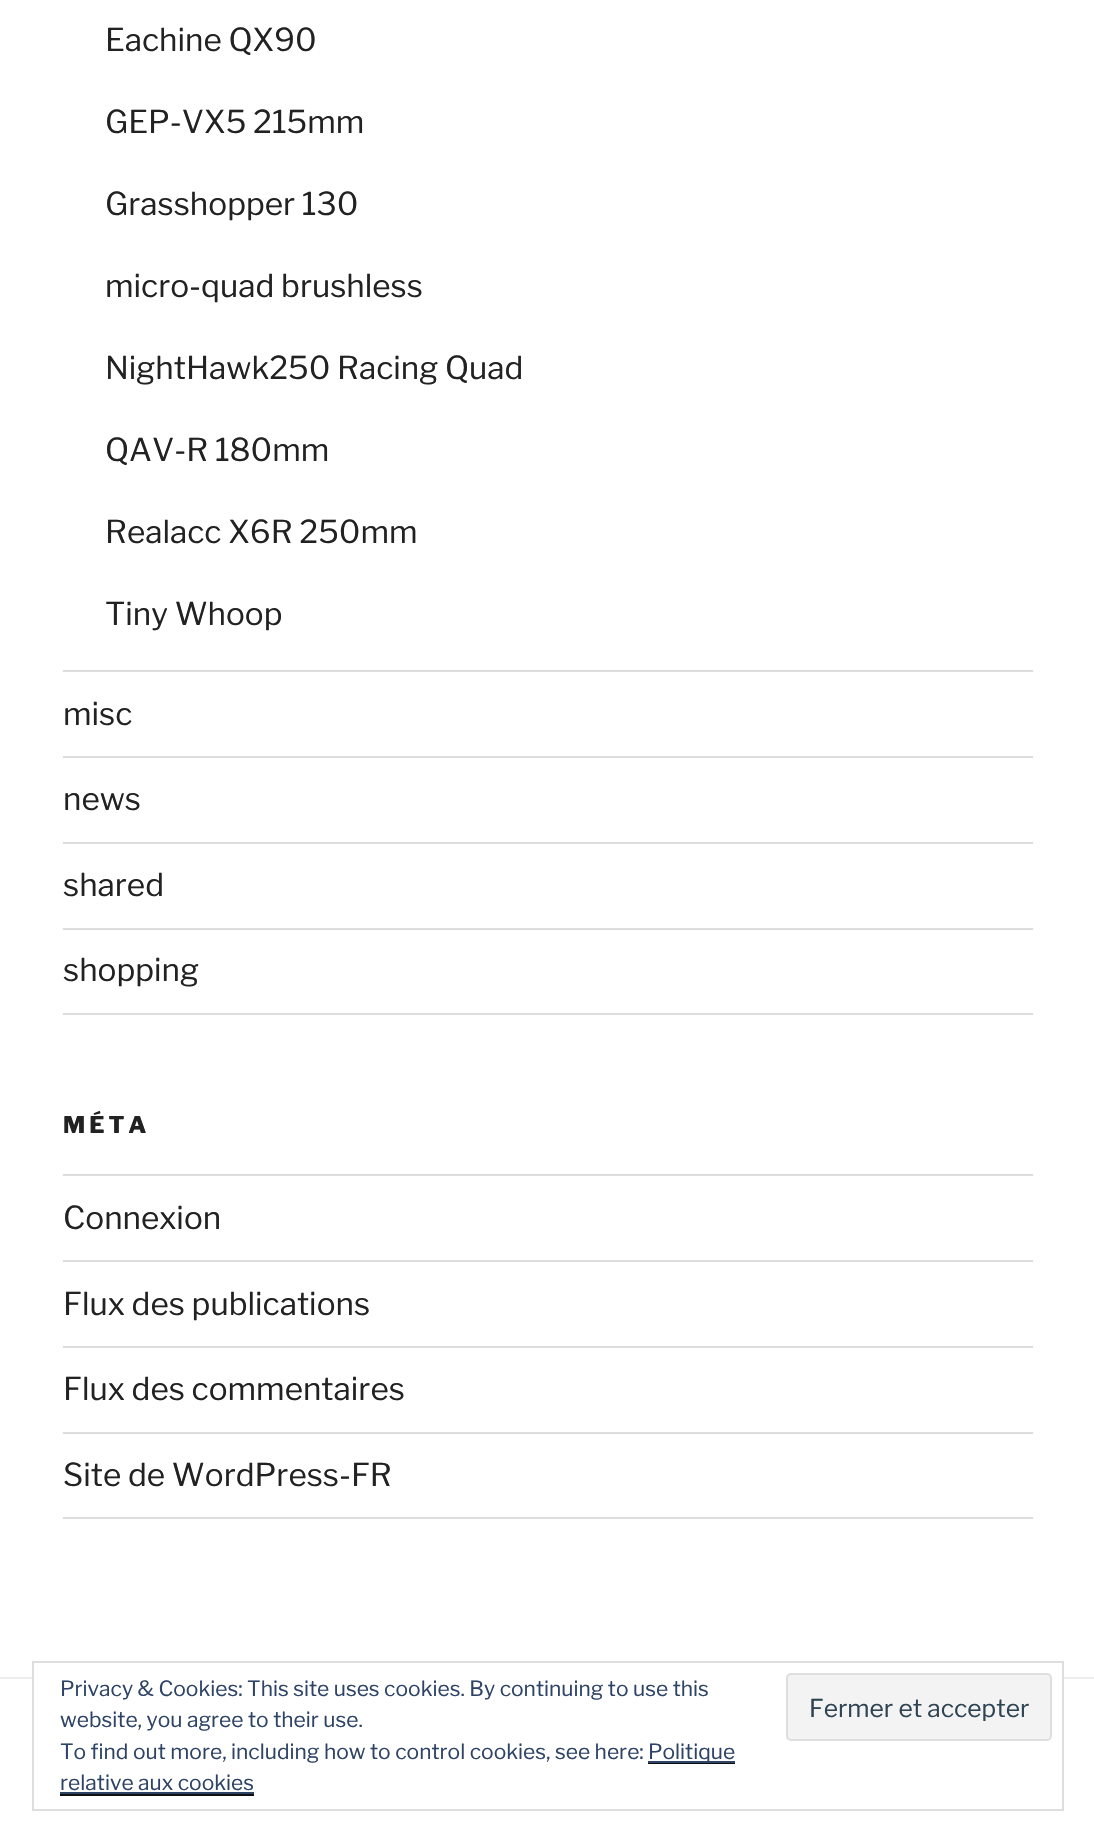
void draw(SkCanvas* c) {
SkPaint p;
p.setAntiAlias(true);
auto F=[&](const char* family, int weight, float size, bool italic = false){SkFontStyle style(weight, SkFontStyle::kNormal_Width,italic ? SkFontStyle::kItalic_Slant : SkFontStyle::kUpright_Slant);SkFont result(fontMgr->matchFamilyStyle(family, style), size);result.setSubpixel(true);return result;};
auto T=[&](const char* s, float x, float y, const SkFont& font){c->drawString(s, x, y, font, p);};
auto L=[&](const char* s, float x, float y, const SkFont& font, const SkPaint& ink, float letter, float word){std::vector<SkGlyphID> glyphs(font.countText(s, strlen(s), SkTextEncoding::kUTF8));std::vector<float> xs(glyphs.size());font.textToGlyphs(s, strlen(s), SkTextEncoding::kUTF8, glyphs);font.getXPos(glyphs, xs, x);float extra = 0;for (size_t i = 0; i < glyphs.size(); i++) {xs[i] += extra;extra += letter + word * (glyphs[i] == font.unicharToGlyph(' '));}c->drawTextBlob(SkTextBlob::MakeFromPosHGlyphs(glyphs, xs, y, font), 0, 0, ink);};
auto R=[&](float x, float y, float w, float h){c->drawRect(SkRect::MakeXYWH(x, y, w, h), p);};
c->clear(0xffffffff);
p.setColor(0xffdddddd);
R(63,670,970,2);
auto f1 = F("Libre Franklin",100,31.5);
p.setColor(0xff222222);
T("Eachine QX90",105,51,f1);
T("GEP-VX5 215mm",105,133,f1);
T("Grasshopper 130",105,215,f1);
T("micro-quad brushless",105,297,f1);
T("NightHawk250 Racing Quad",105,379,f1);
T("QAV-R 180mm",105,461,f1);
T("Realacc X6R 250mm",105,543,f1);
T("Tiny Whoop",105,625,f1);
p.setColor(0xffdddddd);
R(63,756,970,2);
p.setColor(0xff222222);
T("misc",63,725,f1);
p.setColor(0xffdddddd);
R(63,842,970,2);
p.setColor(0xff222222);
T("news",63,810,f1);
p.setColor(0xffdddddd);
R(63,928,970,2);
p.setColor(0xff222222);
T("shared",63,896,f1);
p.setColor(0xffdddddd);
R(63,1013,970,2);
p.setColor(0xff222222);
T("shopping",63,981,f1);
auto f2 = F("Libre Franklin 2",100,23);
L("MÉTA",63,1133,f2,p,4,0);
p.setColor(0xffdddddd);
R(63,1174,970,2);
R(63,1260,970,2);
p.setColor(0xff222222);
T("Connexion",63,1229,f1);
p.setColor(0xffdddddd);
R(63,1346,970,2);
p.setColor(0xff222222);
T("Flux des publications",63,1315,f1);
p.setColor(0xffdddddd);
R(63,1432,970,2);
p.setColor(0xff222222);
T("Flux des commentaires",63,1400,f1);
p.setColor(0xffdddddd);
R(63,1517,970,2);
p.setColor(0xff222222);
T("Site de WordPress-FR",63,1486,f1);
p.setColor(0xffeeeeee);
R(0,1677,1094,2);
p.setColor(0xffffffff);
R(34,1677,1028,2);
p.setStroke(true);
p.setStrokeWidth(2);
p.setColor(0xffdedede);
c->drawRect(SkRect::MakeXYWH(33,1662,1030,148),p);
auto f3 = F("Libre Franklin",100,21);
p.setStroke(false);
p.setColor(0xff2e4467);
T("Privacy & Cookies: This site uses cookies. By continuing to use this",60,1696,f3);
T("website, you agree to their use.",60,1727,f3);
p.setColor(0xfff3f3f3);
c->drawRoundRect(SkRect::MakeXYWH(787,1674,264,66),4,4,p);
p.setStroke(true);
p.setColor(0xffdedede);
c->drawRoundRect(SkRect::MakeXYWH(787,1674,264,66),4,4,p);
auto f4 = F("Libre Franklin",100,24.5);
p.setStroke(false);
p.setColor(0xff2e4453);
T("Fermer et accepter",809,1717,f4);
p.setColor(0xff2e4467);
T("To find out more, including how to control cookies, see here:",60,1759,f3);
R(648,1761,87,2);
T("Politique",648,1759,f3);
p.setColor(0xff0f0f0f);
R(648,1763,87,1);
p.setColor(0xff2e4467);
T("relative aux cookies",60,1790,f3);
p.setColor(0xff0f0f0f);
R(60,1794,194,2);
p.setColor(0xff2e4467);
R(60,1792,194,2);
}
